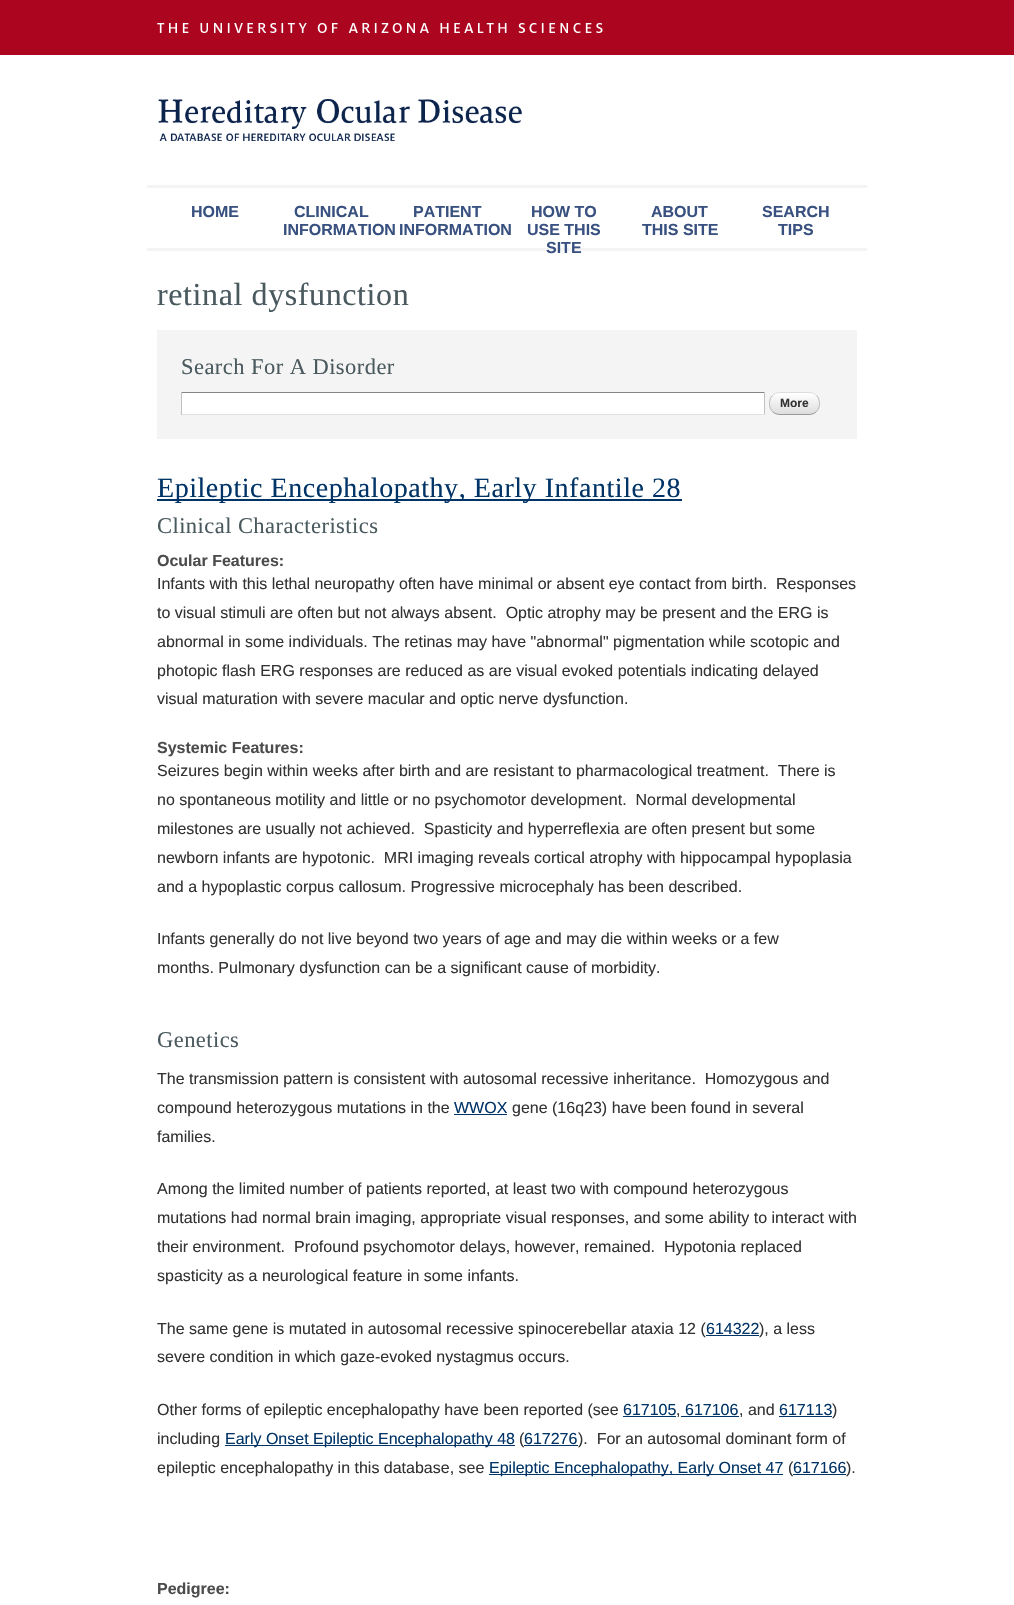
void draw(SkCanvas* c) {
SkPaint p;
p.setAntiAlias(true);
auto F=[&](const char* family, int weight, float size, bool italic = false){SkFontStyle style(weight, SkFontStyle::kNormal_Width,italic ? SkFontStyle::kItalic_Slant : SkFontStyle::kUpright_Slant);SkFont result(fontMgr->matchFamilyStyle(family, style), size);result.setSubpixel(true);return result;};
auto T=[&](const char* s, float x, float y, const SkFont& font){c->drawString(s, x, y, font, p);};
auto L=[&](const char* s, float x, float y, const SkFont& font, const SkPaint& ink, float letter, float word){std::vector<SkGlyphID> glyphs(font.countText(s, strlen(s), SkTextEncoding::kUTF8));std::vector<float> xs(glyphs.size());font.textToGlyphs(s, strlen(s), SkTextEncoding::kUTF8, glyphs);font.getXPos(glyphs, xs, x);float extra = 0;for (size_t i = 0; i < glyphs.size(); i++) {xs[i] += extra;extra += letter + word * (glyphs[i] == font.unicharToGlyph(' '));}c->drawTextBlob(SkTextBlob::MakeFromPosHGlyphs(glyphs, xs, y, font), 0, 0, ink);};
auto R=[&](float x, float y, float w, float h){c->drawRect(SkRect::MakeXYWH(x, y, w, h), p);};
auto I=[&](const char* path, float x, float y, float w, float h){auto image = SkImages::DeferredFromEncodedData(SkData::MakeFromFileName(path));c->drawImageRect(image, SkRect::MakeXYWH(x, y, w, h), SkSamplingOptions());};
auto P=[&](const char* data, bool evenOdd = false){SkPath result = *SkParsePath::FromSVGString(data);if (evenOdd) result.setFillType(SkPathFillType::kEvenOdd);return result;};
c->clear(0xffffffff);
p.setColor(0xffab0520);
R(0,0,1014,55);
I("1.png",157,23,446,10);
I("2.png",158,99,364,42);
p.setColor(0xfff4f4f4);
R(147,185,720,3);
R(147,248,720,3);
auto f1 = F("Liberation Sans",700,16);
p.setColor(0xff395180);
T("HOME",191,217,f1);
T("CLINICAL",294,217,f1);
T("INFORMATION",283,235,f1);
T("PATIENT",413,217,f1);
T("INFORMATION",399,235,f1);
T("HOW TO",531,217,f1);
T("USE THIS",527,235,f1);
T("SITE",546,253,f1);
T("ABOUT",651,217,f1);
T("THIS SITE",642,235,f1);
T("SEARCH",762,217,f1);
T("TIPS",778,235,f1);
auto f2 = F("Liberation Serif",400,32);
p.setColor(0xff49595e);
L("retinal dysfunction",157,305,f2,p,.6,0);
p.setColor(0xfff4f4f4);
R(157,330,700,109);
auto f3 = F("Liberation Serif",400,22.5);
p.setColor(0xff49595e);
L("Search For A Disorder",181,374,f3,p,.45,0);
p.setColor(0xffffffff);
R(182,393,582,21);
p.setColor(0xff848484);
R(181,392,584,1);
p.setColor(0xffc1c1c1);
R(764,392,1,23);
p.setColor(0xffe1e1e1);
R(181,414,584,1);
p.setColor(0xffc1c1c1);
R(181,392,1,23);
c->save();
c->clipPath(P("M780 392h29c6 0 11 5 11 11v1c0 6-5 11-11 11h-29c-6 0-11-5-11-11v-1c0-6 5-11 11-11z"),true);
{
const SkColor colors[] = {0xffffffff,0xffdddddd};
const float stops[] = {0,1};
const SkPoint ends[] = {{770,393}, {770,414}};
p.setShader(SkGradientShader::MakeLinear(ends, colors, stops, 2, SkTileMode::kClamp));
p.setAlpha(255);
}
R(769,393,51,21);
c->restore();
p.setStroke(true);
p.setStrokeWidth(1);
p.setShader(nullptr);
p.setColor(0xffdddddd);
c->drawPath(P("M772.5 395.5c2-2 4.5-3 7.5-3h29c3 0 5.5 1 7.5 3"),p);
p.setColor(0xffbbbbbb);
c->drawPath(P("M816.5 395.5c4 4 4 12 0 16"),p);
p.setColor(0xff999999);
c->drawPath(P("M816.5 411.5c-2 2-4.5 3-7.5 3h-29c-3 0-5.5-1-7.5-3"),p);
p.setColor(0xffbbbbbb);
c->drawPath(P("M772.5 411.5c-4-4-4-12 0-16"),p);
auto f4 = F("Liberation Sans",700,12);
p.setStroke(false);
p.setColor(0xff333333);
T("More",780,407,f4);
p.setColor(0xff003366);
R(157,499,525,2);
auto f5 = F("Liberation Serif",400,28);
L("Epileptic Encephalopathy, Early Infantile 28",157,497,f5,p,.55,0);
p.setColor(0xff49595e);
L("Clinical Characteristics",157,533,f3,p,.45,0);
p.setColor(0xff4c4c4c);
T("Ocular Features:",157,566,f1);
auto f6 = F("Liberation Sans",400,16);
p.setColor(0xff333333);
T("Infants with this lethal neuropathy often have minimal or absent eye contact from birth.  Responses",157,589,f6);
T("to visual stimuli are often but not always absent.  Optic atrophy may be present and the ERG is",157,618,f6);
T("abnormal in some individuals. The retinas may have \"abnormal\" pigmentation while scotopic and",157,647,f6);
T("photopic flash ERG responses are reduced as are visual evoked potentials indicating delayed",157,676,f6);
T("visual maturation with severe macular and optic nerve dysfunction.",157,704,f6);
p.setColor(0xff4c4c4c);
T("Systemic Features:",157,753,f1);
p.setColor(0xff333333);
T("Seizures begin within weeks after birth and are resistant to pharmacological treatment.  There is",157,776,f6);
T("no spontaneous motility and little or no psychomotor development.  Normal developmental",157,805,f6);
T("milestones are usually not achieved.  Spasticity and hyperreflexia are often present but some",157,834,f6);
T("newborn infants are hypotonic.  MRI imaging reveals cortical atrophy with hippocampal hypoplasia",157,863,f6);
T("and a hypoplastic corpus callosum. Progressive microcephaly has been described.",157,892,f6);
T("Infants generally do not live beyond two years of age and may die within weeks or a few",157,944,f6);
T("months. Pulmonary dysfunction can be a significant cause of morbidity.",157,973,f6);
p.setColor(0xff49595e);
L("Genetics",157,1047,f3,p,.45,0);
p.setColor(0xff333333);
T("The transmission pattern is consistent with autosomal recessive inheritance.  Homozygous and",157,1084,f6);
T("compound heterozygous mutations in the",157,1113,f6);
p.setColor(0xff003366);
T("WWOX",454,1113,f6);
R(454,1114,53,1);
p.setColor(0xff333333);
T("gene (16q23) have been found in several",512,1113,f6);
T("families.",157,1142,f6);
T("Among the limited number of patients reported, at least two with compound heterozygous",157,1194,f6);
T("mutations had normal brain imaging, appropriate visual responses, and some ability to interact with",157,1223,f6);
T("their environment.  Profound psychomotor delays, however, remained.  Hypotonia replaced",157,1252,f6);
T("spasticity as a neurological feature in some infants.",157,1281,f6);
T("The same gene is mutated in autosomal recessive spinocerebellar ataxia 12 (",157,1334,f6);
p.setColor(0xff003366);
T("614322",706,1334,f6);
R(706,1335,53,1);
p.setColor(0xff333333);
T("), a less",759,1334,f6);
T("severe condition in which gaze-evoked nystagmus occurs.",157,1362,f6);
T("Other forms of epileptic encephalopathy have been reported (see",157,1415,f6);
p.setColor(0xff003366);
T("617105",623,1415,f6);
R(623,1416,53,1);
p.setColor(0xff333333);
T(",",676,1415,f6);
p.setColor(0xff003366);
T("617106",685,1415,f6);
R(681,1416,58,1);
p.setColor(0xff333333);
T(", and",739,1415,f6);
p.setColor(0xff003366);
T("617113",779,1415,f6);
R(779,1416,53,1);
p.setColor(0xff333333);
T(")",832,1415,f6);
T("including",157,1444,f6);
p.setColor(0xff003366);
R(225,1445,290,1);
T("Early Onset Epileptic Encephalopathy 48",225,1444,f6);
p.setColor(0xff333333);
T("(",519,1444,f6);
p.setColor(0xff003366);
T("617276",524,1444,f6);
R(524,1445,54,1);
p.setColor(0xff333333);
T(").  For an autosomal dominant form of",578,1444,f6);
T("epileptic encephalopathy in this database, see",157,1473,f6);
p.setColor(0xff003366);
R(489,1474,294,1);
T("Epileptic Encephalopathy, Early Onset 47",489,1473,f6);
p.setColor(0xff333333);
T("(",788,1473,f6);
p.setColor(0xff003366);
T("617166",793,1473,f6);
R(793,1474,53,1);
p.setColor(0xff333333);
T(").",846,1473,f6);
p.setColor(0xff4c4c4c);
T("Pedigree:",157,1594,f1);
}
